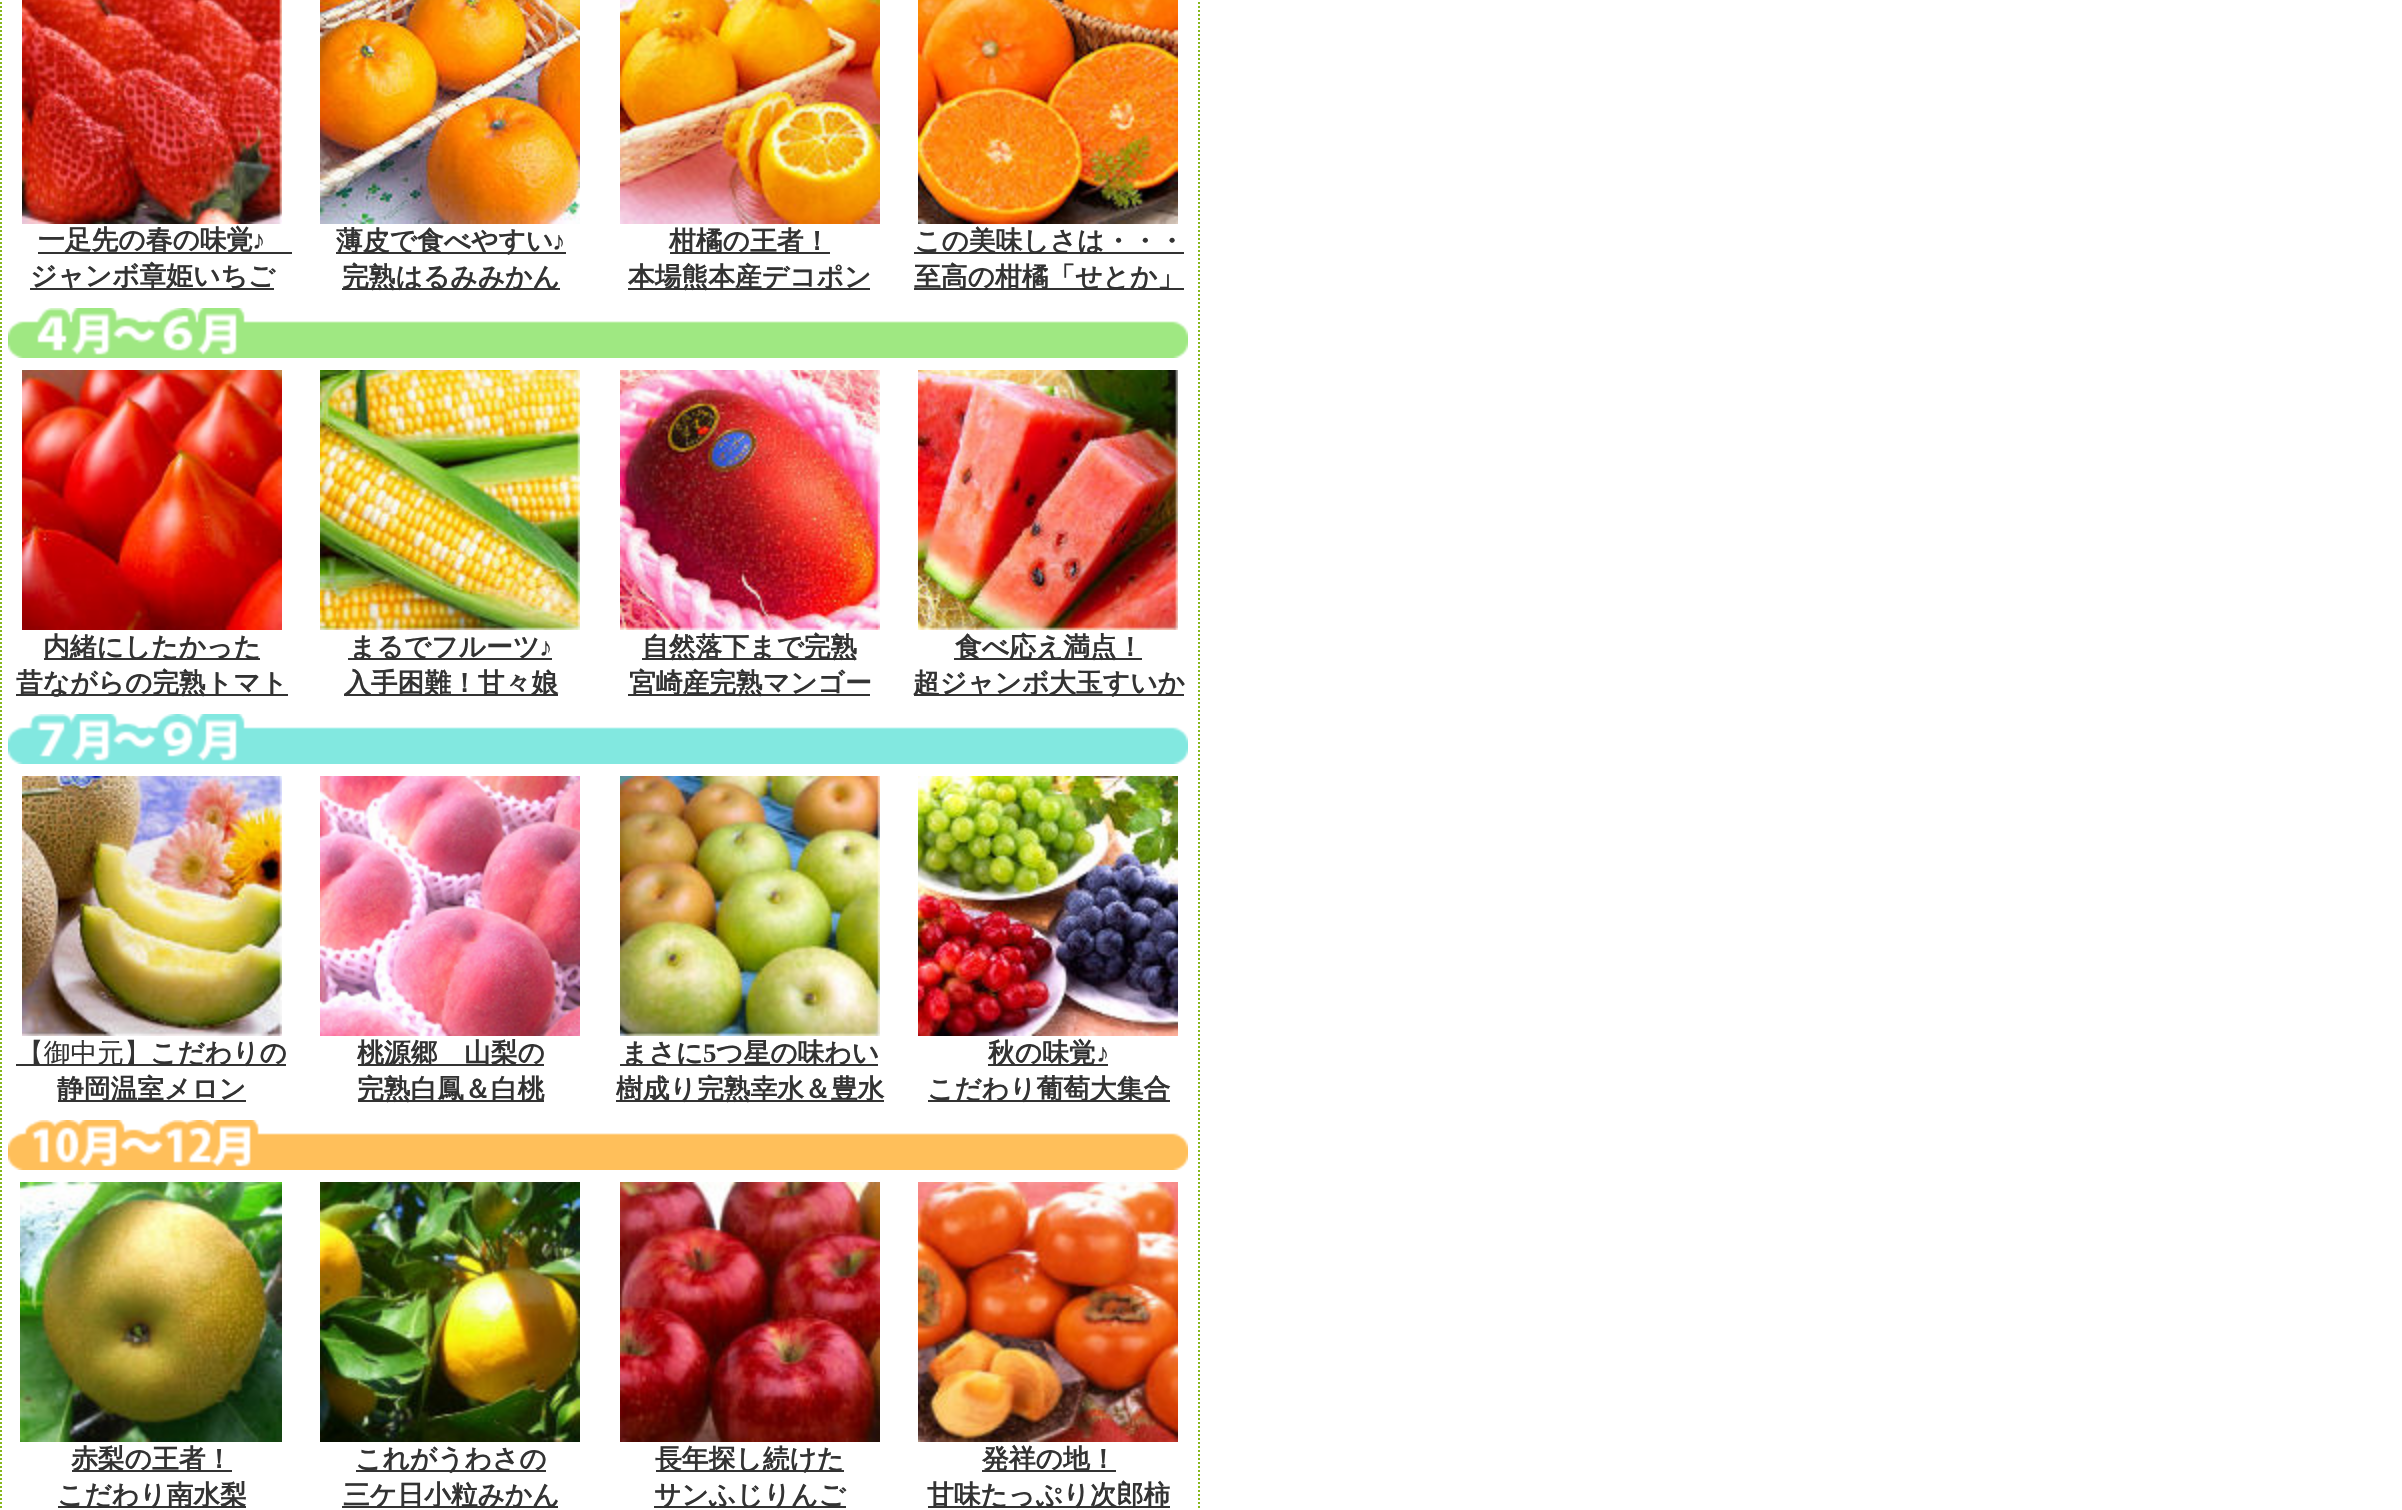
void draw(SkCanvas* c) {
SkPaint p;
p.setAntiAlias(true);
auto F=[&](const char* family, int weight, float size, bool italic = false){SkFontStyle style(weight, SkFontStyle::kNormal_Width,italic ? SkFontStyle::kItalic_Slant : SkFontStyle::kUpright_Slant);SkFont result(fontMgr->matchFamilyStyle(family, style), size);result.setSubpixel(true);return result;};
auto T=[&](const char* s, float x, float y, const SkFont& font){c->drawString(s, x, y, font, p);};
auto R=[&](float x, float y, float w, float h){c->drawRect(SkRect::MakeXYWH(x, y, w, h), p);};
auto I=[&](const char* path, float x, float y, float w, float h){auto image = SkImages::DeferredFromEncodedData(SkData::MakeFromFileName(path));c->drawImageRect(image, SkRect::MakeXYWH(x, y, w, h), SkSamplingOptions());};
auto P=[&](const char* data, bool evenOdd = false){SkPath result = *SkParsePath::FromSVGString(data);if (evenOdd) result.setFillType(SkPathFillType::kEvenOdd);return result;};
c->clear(0xffffffff);
p.setStroke(true);
p.setStrokeWidth(2);
p.setColor(0xff85b71a);
p.setPathEffect(SkDashPathEffect::Make({{2,2}}, 0));
c->drawPath(P("M1199-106v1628"),p);
p.setPathEffect(nullptr);
p.setPathEffect(SkDashPathEffect::Make({{2,2}}, 0));
c->drawPath(P("M1-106v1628"),p);
p.setPathEffect(nullptr);
I("1.png",22,0,260,224);
p.setStroke(false);
p.setColor(0xff333333);
R(38,252,254,2);
auto f1 = F("WenQuanYi Zen Hei",700,26.75);
T("一足先の春の味覚",38,249,f1);
auto f2 = F("Liberation Serif",700,26.75);
T("♪",252,249,f2);
R(30,288,244,2);
T("ジャンボ章姫いちご",30,285,f1);
I("2.png",320,0,260,224);
R(336,252,230,2);
T("薄皮で食べやすい",336,250,f1);
T("♪",552,250,f2);
R(342,288,218,2);
T("完熟はるみみかん",342,286,f1);
I("3.png",620,0,260,224);
R(670,252,160,2);
T("柑橘の王者！",669,250,f1);
R(628,288,242,2);
T("本場熊本産デコポン",628,286,f1);
I("4.png",918,0,260,224);
R(914,252,270,2);
T("この美味しさは・・・",914,250,f1);
R(914,288,270,2);
T("至高の柑橘「せとか」",914,286,f1);
I("5.png",8,308,1180,50);
I("6.png",22,370,260,260);
R(44,658,216,2);
T("内緒にしたかった",43,656,f1);
R(16,694,272,2);
T("昔ながらの完熟トマト",16,692,f1);
I("7.png",320,370,260,260);
R(348,658,204,2);
T("まるでフルーツ",349,656,f1);
T("♪",539,656,f2);
R(344,694,214,2);
T("入手困難！甘々娘",344,692,f1);
I("8.png",620,370,260,260);
R(642,658,214,2);
T("自然落下まで完熟",642,656,f1);
R(628,694,242,2);
T("宮崎産完熟マンゴー",629,692,f1);
I("9.png",918,370,260,260);
R(954,658,188,2);
T("食べ応え満点！",955,656,f1);
R(914,694,270,2);
T("超ジャンボ大玉すいか",913,692,f1);
I("10.png",8,714,1180,50);
I("11.png",22,776,260,260);
R(16,1064,270,2);
auto f3 = F("WenQuanYi Zen Hei",500,26.75);
T("【御中元】",17,1062,f3);
T("こだわりの",150,1062,f1);
R(58,1100,188,2);
T("静岡温室メロン",57,1098,f1);
I("12.png",320,776,260,260);
R(358,1064,186,2);
T("桃源郷　山梨の",357,1062,f1);
R(358,1100,186,2);
T("完熟白鳳＆白桃",357,1098,f1);
I("13.png",620,776,260,260);
R(620,1064,258,2);
T("まさに",621,1062,f1);
T("5",703,1062,f2);
T("つ星の味わい",716,1062,f1);
R(616,1100,268,2);
T("樹成り完熟幸水＆豊水",616,1098,f1);
I("14.png",918,776,260,260);
R(988,1064,120,2);
T("秋の味覚",988,1062,f1);
T("♪",1096,1062,f2);
R(928,1100,242,2);
T("こだわり葡萄大集合",927,1098,f1);
I("15.png",8,1120,1180,50);
I("16.png",20,1182,262,260);
R(72,1470,160,2);
T("赤梨の王者！",71,1468,f1);
R(58,1506,188,2);
T("こだわり南水梨",57,1504,f1);
I("17.png",320,1182,260,260);
R(356,1470,190,2);
T("これがうわさの",355,1468,f1);
R(342,1506,216,2);
T("三ケ日小粒みかん",343,1504,f1);
I("18.png",620,1182,260,260);
R(656,1470,188,2);
T("長年探し続けた",655,1468,f1);
R(654,1506,192,2);
T("サンふじりんご",654,1504,f1);
I("19.png",918,1182,260,260);
R(982,1470,134,2);
T("発祥の地！",982,1468,f1);
R(928,1506,242,2);
T("甘味たっぷり次郎柿",927,1504,f1);
}
